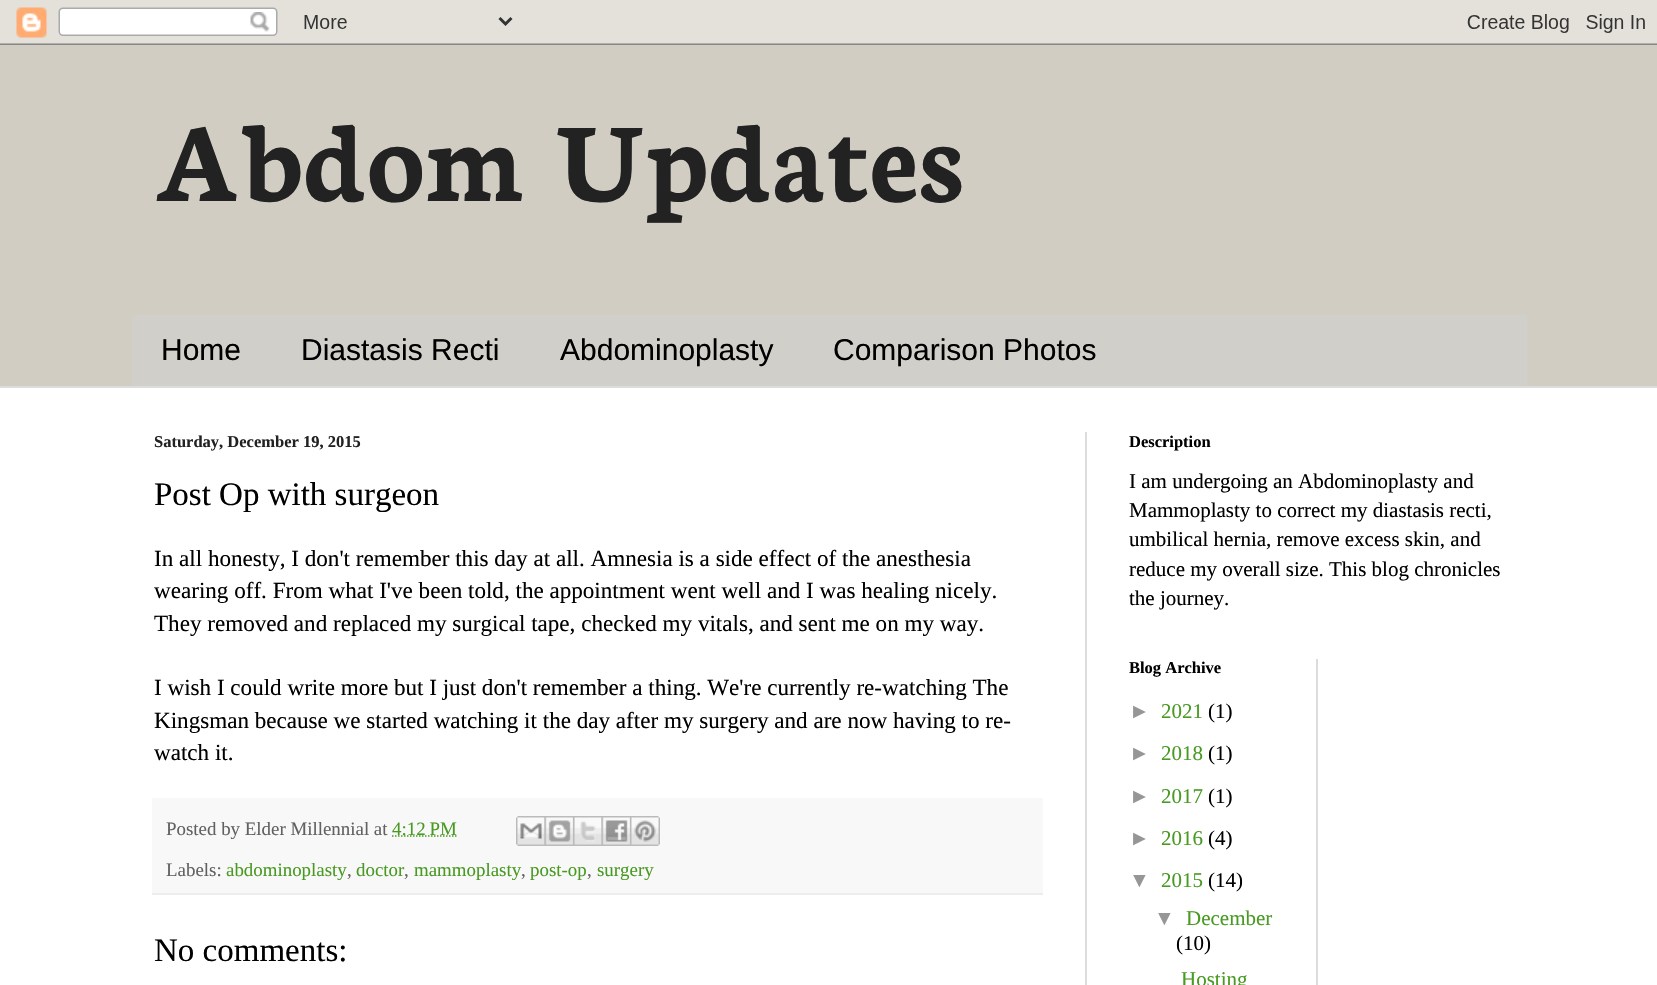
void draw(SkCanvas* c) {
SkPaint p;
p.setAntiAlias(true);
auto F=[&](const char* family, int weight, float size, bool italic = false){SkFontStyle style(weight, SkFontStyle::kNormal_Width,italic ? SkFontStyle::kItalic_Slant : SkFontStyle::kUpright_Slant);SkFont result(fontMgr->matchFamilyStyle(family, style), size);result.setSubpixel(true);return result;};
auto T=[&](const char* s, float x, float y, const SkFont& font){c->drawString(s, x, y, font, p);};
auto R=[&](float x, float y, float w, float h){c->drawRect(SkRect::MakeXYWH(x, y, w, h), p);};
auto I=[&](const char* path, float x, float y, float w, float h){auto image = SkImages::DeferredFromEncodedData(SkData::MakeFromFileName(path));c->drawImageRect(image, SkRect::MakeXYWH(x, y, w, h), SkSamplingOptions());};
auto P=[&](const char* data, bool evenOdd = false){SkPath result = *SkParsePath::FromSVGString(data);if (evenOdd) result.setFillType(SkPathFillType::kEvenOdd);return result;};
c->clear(0xffd1cdc2);
I("1.png",0,0,1657,45);
auto f1 = F("Neuton",700,120);
p.setColor(0xff222222);
T("Abdom Updates",154,201,f1);
p.setColor(0xffd1cfc9);
R(132,315,1395,71);
auto f2 = F("Liberation Sans",400,30);
p.setColor(0xff000000);
T("Home",161,360,f2);
T("Diastasis Recti",301,360,f2);
T("Abdominoplasty",560,360,f2);
T("Comparison Photos",833,360,f2);
p.setColor(0xffffffff);
R(0,388,1657,597);
p.setColor(0xffdcdcdc);
R(0,386,1657,2);
R(1085,432,2,553);
auto f3 = F("Liberation Serif",700,16.5);
p.setColor(0xff222222);
T("Saturday, December 19, 2015",154,447,f3);
auto f4 = F("Liberation Serif",400,33);
p.setColor(0xff000000);
T("Post Op with surgeon",154,505,f4);
auto f5 = F("Liberation Serif",400,23.1);
T("In all honesty, I don't remember this day at all. Amnesia is a side effect of the anesthesia",154,566,f5);
T("wearing off. From what I've been told, the appointment went well and I was healing nicely.",154,598,f5);
T("They removed and replaced my surgical tape, checked my vitals, and sent me on my way.",154,631,f5);
T("I wish I could write more but I just don't remember a thing. We're currently re-watching The",154,695,f5);
T("Kingsman because we started watching it the day after my surgery and are now having to re-",154,728,f5);
T("watch it.",154,760,f5);
p.setColor(0xfff8f8f8);
R(152,798,891,95);
p.setColor(0xffededed);
R(152,893,891,2);
auto f6 = F("Liberation Serif",400,18.9);
p.setColor(0xff616161);
T("Posted by Elder Millennial at",166,835,f6);
p.setStroke(true);
p.setStrokeWidth(1.5);
p.setColor(0xff489a22);
p.setPathEffect(SkDashPathEffect::Make({{1.5f,1.5f}}, 0));
c->drawPath(P("M392 836h64.5"),p);
p.setPathEffect(nullptr);
p.setStroke(false);
T("4:12 PM",392,835,f6);
I("2.png",516,816,29,30);
I("3.png",544,816,29,30);
I("4.png",573,816,29,30);
I("5.png",601,816,29,30);
I("6.png",630,816,30,30);
p.setColor(0xff616161);
T("Labels:",166,876,f6);
p.setColor(0xff489a22);
T("abdominoplasty",226,876,f6);
p.setColor(0xff616161);
T(",",347,876,f6);
p.setColor(0xff489a22);
T("doctor",356,876,f6);
p.setColor(0xff616161);
T(",",404,876,f6);
p.setColor(0xff489a22);
T("mammoplasty",414,876,f6);
p.setColor(0xff616161);
T(",",521,876,f6);
p.setColor(0xff489a22);
T("post-op",530,876,f6);
p.setColor(0xff616161);
T(",",587,876,f6);
p.setColor(0xff489a22);
T("surgery",597,876,f6);
p.setColor(0xff000000);
T("No comments:",154,961,f4);
T("Description",1129,447,f3);
auto f7 = F("Liberation Serif",400,21);
T("I am undergoing an Abdominoplasty and",1129,488,f7);
T("Mammoplasty to correct my diastasis recti,",1129,517,f7);
T("umbilical hernia, remove excess skin, and",1129,546,f7);
T("reduce my overall size. This blog chronicles",1129,576,f7);
T("the journey.",1129,605,f7);
T("Blog Archive",1129,673,f3);
auto f8 = F("Liberation Sans",400,21);
p.setColor(0xff969696);
T("►",1129,718,f8);
p.setColor(0xff489a22);
T("2021",1161,718,f7);
p.setColor(0xff000000);
T("(1)",1208,718,f7);
p.setColor(0xff969696);
T("►",1129,760,f8);
p.setColor(0xff489a22);
T("2018",1161,760,f7);
p.setColor(0xff000000);
T("(1)",1208,760,f7);
p.setColor(0xff969696);
T("►",1129,803,f8);
p.setColor(0xff489a22);
T("2017",1161,803,f7);
p.setColor(0xff000000);
T("(1)",1208,803,f7);
p.setColor(0xff969696);
T("►",1129,845,f8);
p.setColor(0xff489a22);
T("2016",1161,845,f7);
p.setColor(0xff000000);
T("(4)",1208,845,f7);
p.setColor(0xff969696);
T("▼",1129,887,f8);
p.setColor(0xff489a22);
T("2015",1161,887,f7);
p.setColor(0xff000000);
T("(14)",1208,887,f7);
p.setColor(0xff969696);
T("▼",1154,925,f8);
p.setColor(0xff489a22);
T("December",1186,925,f7);
p.setColor(0xff000000);
T("(10)",1176,950,f7);
p.setColor(0xff489a22);
T("Hosting",1181,986,f7);
p.setColor(0xffdcdcdc);
R(1316,659,2,326);
}
